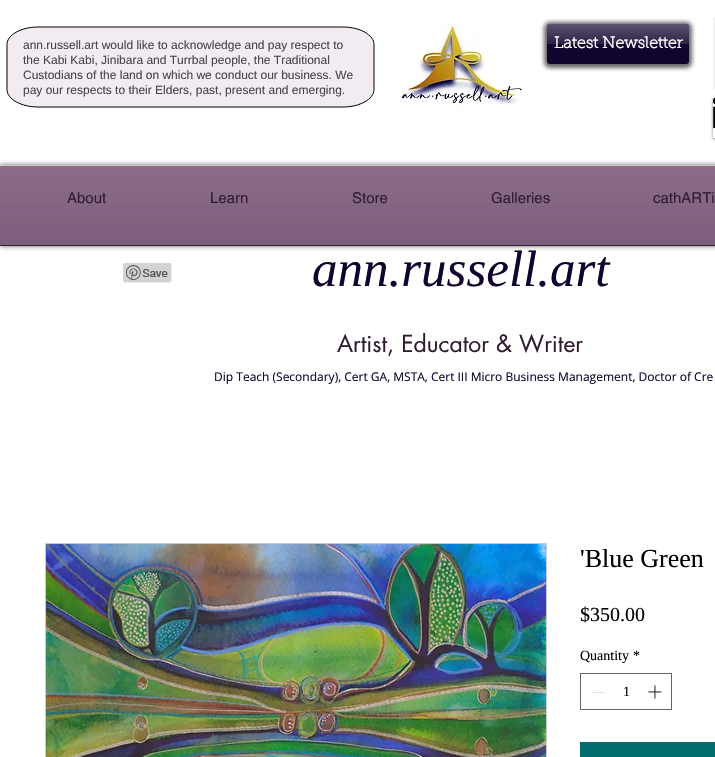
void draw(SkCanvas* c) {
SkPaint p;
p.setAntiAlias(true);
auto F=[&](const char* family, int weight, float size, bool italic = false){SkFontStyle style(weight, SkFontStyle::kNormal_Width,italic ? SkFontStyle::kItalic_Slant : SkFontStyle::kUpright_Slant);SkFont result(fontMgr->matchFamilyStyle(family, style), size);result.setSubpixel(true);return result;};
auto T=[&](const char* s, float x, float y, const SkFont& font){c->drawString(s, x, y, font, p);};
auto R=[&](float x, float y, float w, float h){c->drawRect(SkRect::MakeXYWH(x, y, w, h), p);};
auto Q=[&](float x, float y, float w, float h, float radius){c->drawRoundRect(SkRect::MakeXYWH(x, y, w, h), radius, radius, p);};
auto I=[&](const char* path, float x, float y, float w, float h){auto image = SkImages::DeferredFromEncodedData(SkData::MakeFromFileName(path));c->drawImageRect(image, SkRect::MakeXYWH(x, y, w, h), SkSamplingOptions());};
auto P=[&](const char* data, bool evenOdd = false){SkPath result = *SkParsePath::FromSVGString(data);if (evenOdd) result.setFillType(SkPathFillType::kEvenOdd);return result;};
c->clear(0xffffffff);
p.setColor(0xfff2ebf2);
c->drawPath(P("M343 107h-305c-17 0-31-8-31-17v-46c0-9 14-17 31-17h305c17 0 31 8 31 17v46c0 9-14 17-31 17z"),p);
p.setStroke(true);
p.setStrokeWidth(1);
p.setColor(0xff000000);
c->drawPath(P("M343 107h-305c-17 0-31-8-31-17.5v-45c0-9.5 14-17.5 31-17.5h305c17 0 31 8 31 17.5v45c0 9.5-14 17.5-31 17.5z"),p);
I("1.png",401,22,122,84);
p.setStroke(false);
p.setColor(0x99000000);
p.setMaskFilter(SkMaskFilter::MakeBlur(kNormal_SkBlurStyle, 2));
c->drawRoundRect(SkRect::MakeXYWH(544,22,148,46),6,6,p);
p.setMaskFilter(nullptr);
p.setColor(0xff11042e);
Q(547,24,142,40,3);
I("2.png",547,24,142,20);
auto f1 = F("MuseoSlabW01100",700,16);
p.setColor(0xffffffff);
T("Latest Newsletter",554,48,f1);
I("3.png",713,17,2,73);
auto f2 = F("Liberation Sans",400,12);
p.setColor(0xff464646);
T("ann.russell.art would like to acknowledge and pay respect to",23,49,f2);
T("the Kabi Kabi, Jinibara and Turrbal people, the Traditional",23,64,f2);
T("Custodians of the land on which we conduct our business. We",23,79,f2);
T("pay our respects to their Elders, past, present and emerging.",23,94,f2);
c->save();
c->clipPath(P("M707 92h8v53h-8zm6 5h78v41h-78z",true),true);
p.setColor(0x80000000);
p.setMaskFilter(SkMaskFilter::MakeBlur(kNormal_SkBlurStyle, 1.5));
c->drawRect(SkRect::MakeXYWH(713,98,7,41),p);
p.setMaskFilter(nullptr);
c->restore();
I("4.png",713,97,2,32);
p.setColor(0x99000000);
p.setMaskFilter(SkMaskFilter::MakeBlur(kNormal_SkBlurStyle, 2.5));
c->drawRect(SkRect::MakeXYWH(0,165,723,81),p);
p.setMaskFilter(nullptr);
p.setColor(0xff623961);
R(0,166,715,79);
I("5.png",0,166,715,79);
p.setColor(0xff322532);
R(0,245,715,1);
p.setColor(0xffd0c4d0);
R(0,165,715,1);
auto f3 = F("helvetica",400,15);
p.setColor(0xff311d31);
T("About",67,203,f3);
T("Learn",210,203,f3);
T("Store",352,203,f3);
T("Galleries",491,203,f3);
T("cathARTi",653,203,f3);
I("6.png",123,263,49,20);
auto f4 = F("Liberation Serif",400,51,true);
p.setColor(0xff11042e);
T("ann.russell.art",312,286,f4);
auto f5 = F("futura",400,23);
p.setColor(0xff311d31);
T("Artist, Educator & Writer",337,352,f5);
auto f6 = F("Open Sans",400,12);
p.setColor(0xff11042e);
T("Dip Teach (Secondary), Cert GA, MSTA, Cert III Micro Business Management, Doctor of Cre",214,381,f6);
p.setStroke(true);
p.setColor(0xffcacaca);
c->drawRect(SkRect::MakeXYWH(45.5,543.5,501,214),p);
I("7.png",46,544,500,213);
auto f7 = F("Liberation Serif",400,26);
p.setStroke(false);
p.setColor(0xff000000);
T("'Blue Green",580,567,f7);
auto f8 = F("Liberation Serif",400,20);
T("$350.00",580,621,f8);
auto f9 = F("Liberation Serif",400,14);
T("Quantity",580,660,f9);
T("*",633,660,f9);
p.setStroke(true);
p.setColor(0xff666666);
c->drawRect(SkRect::MakeXYWH(580.5,673.5,91,36),p);
p.setStroke(false);
p.setColor(0xffe3e3e3);
R(592,692,13,1);
p.setColor(0xff000000);
T("1",623,696,f9);
I("8.png",648,685,14,14);
p.setColor(0xff006c6d);
R(580,742,135,15);
}
